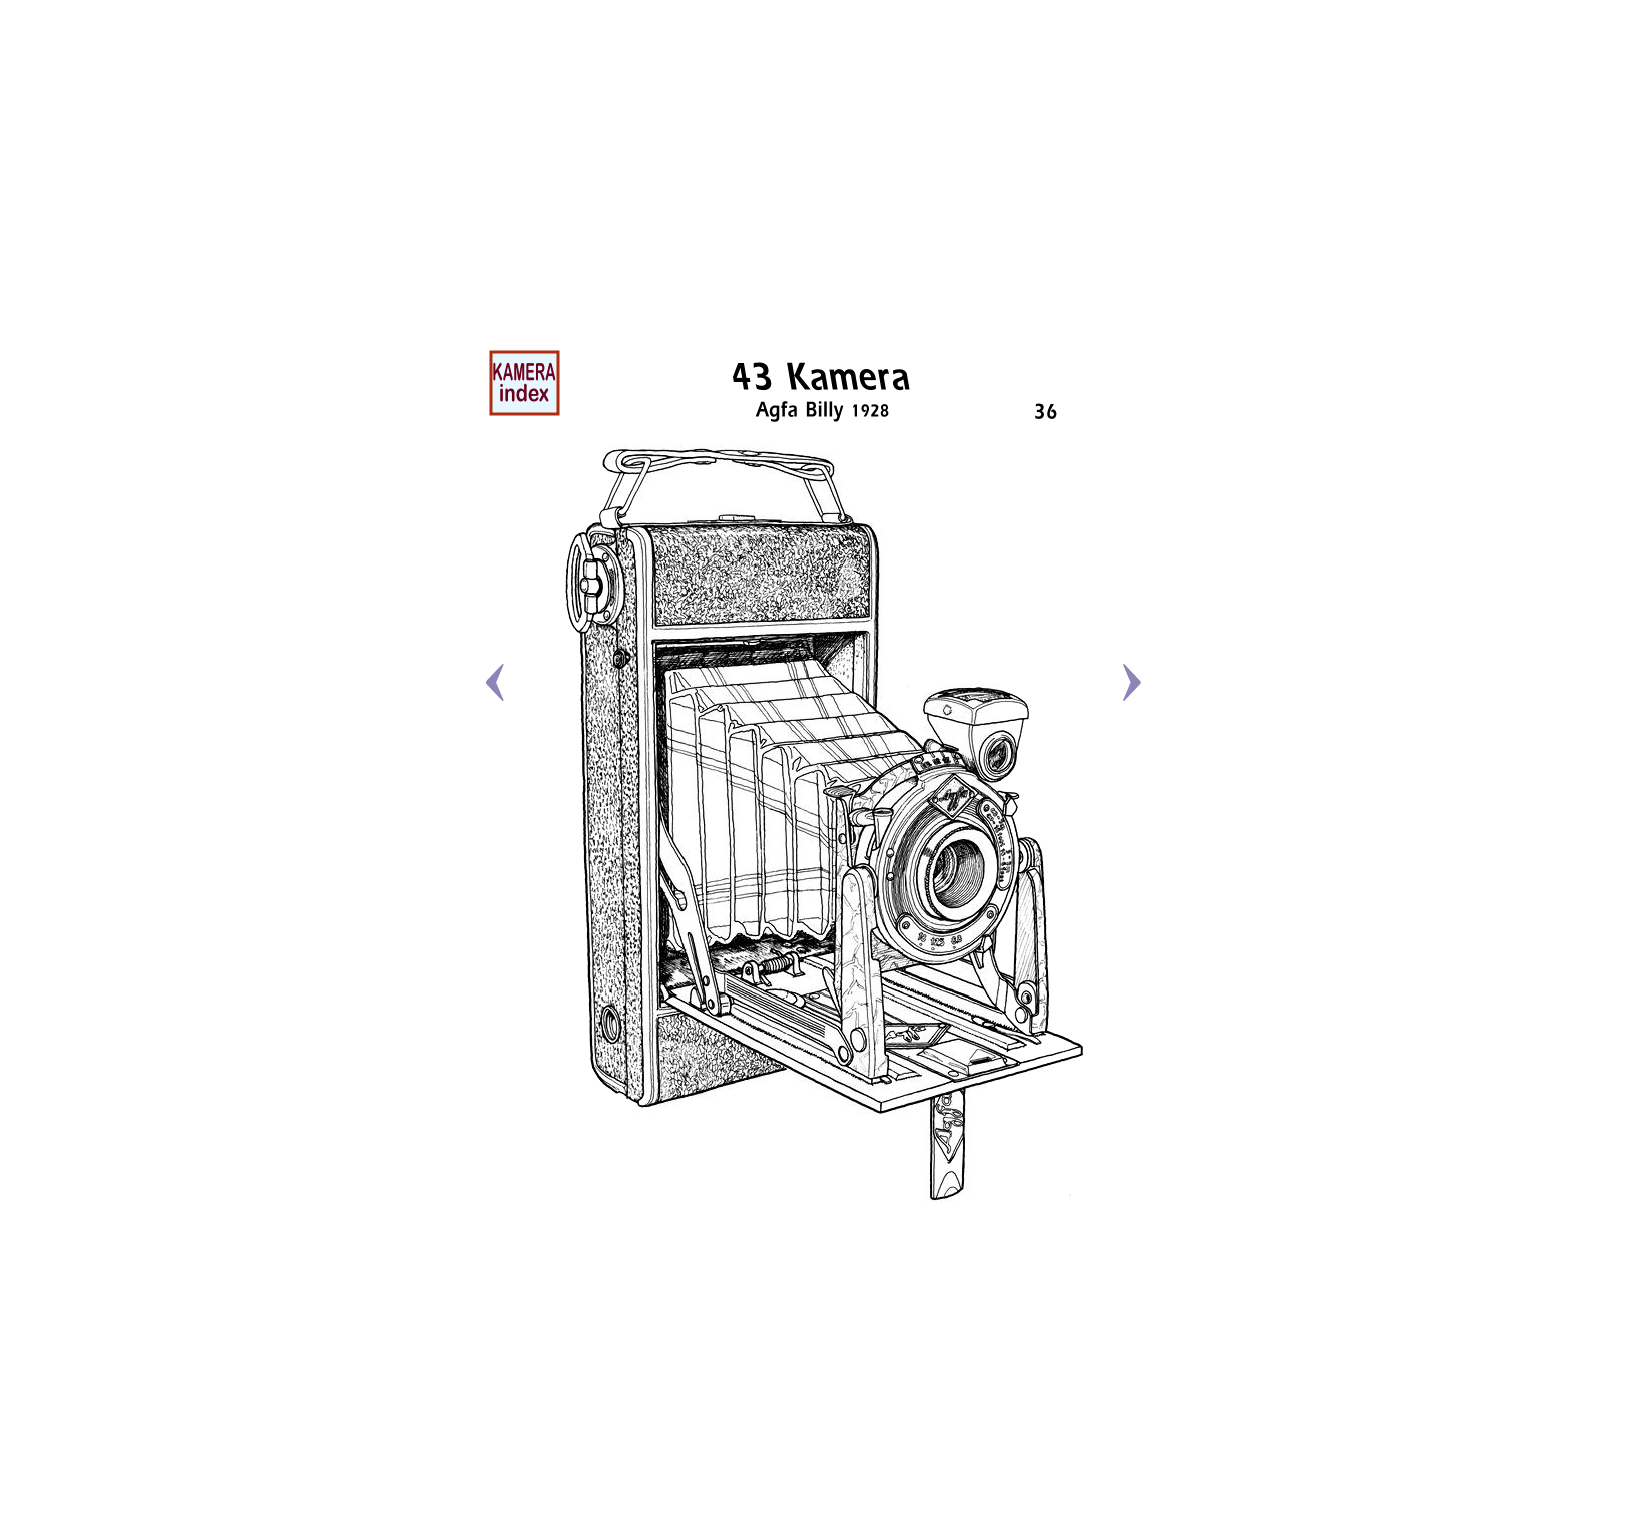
void draw(SkCanvas* c) {
SkPaint p;
p.setAntiAlias(true);
auto I=[&](const char* path, float x, float y, float w, float h){auto image = SkImages::DeferredFromEncodedData(SkData::MakeFromFileName(path));c->drawImageRect(image, SkRect::MakeXYWH(x, y, w, h), SkSamplingOptions());};
c->clear(0xffffffff);
I("1.png",489,350,71,66);
I("2.png",733,362,177,29);
I("3.png",755,401,134,21);
I("4.png",1035,403,22,16);
I("5.png",602,444,233,23);
I("6.png",999,664,142,532);
I("7.png",485,467,150,636);
I("8.png",635,467,364,735);
}
